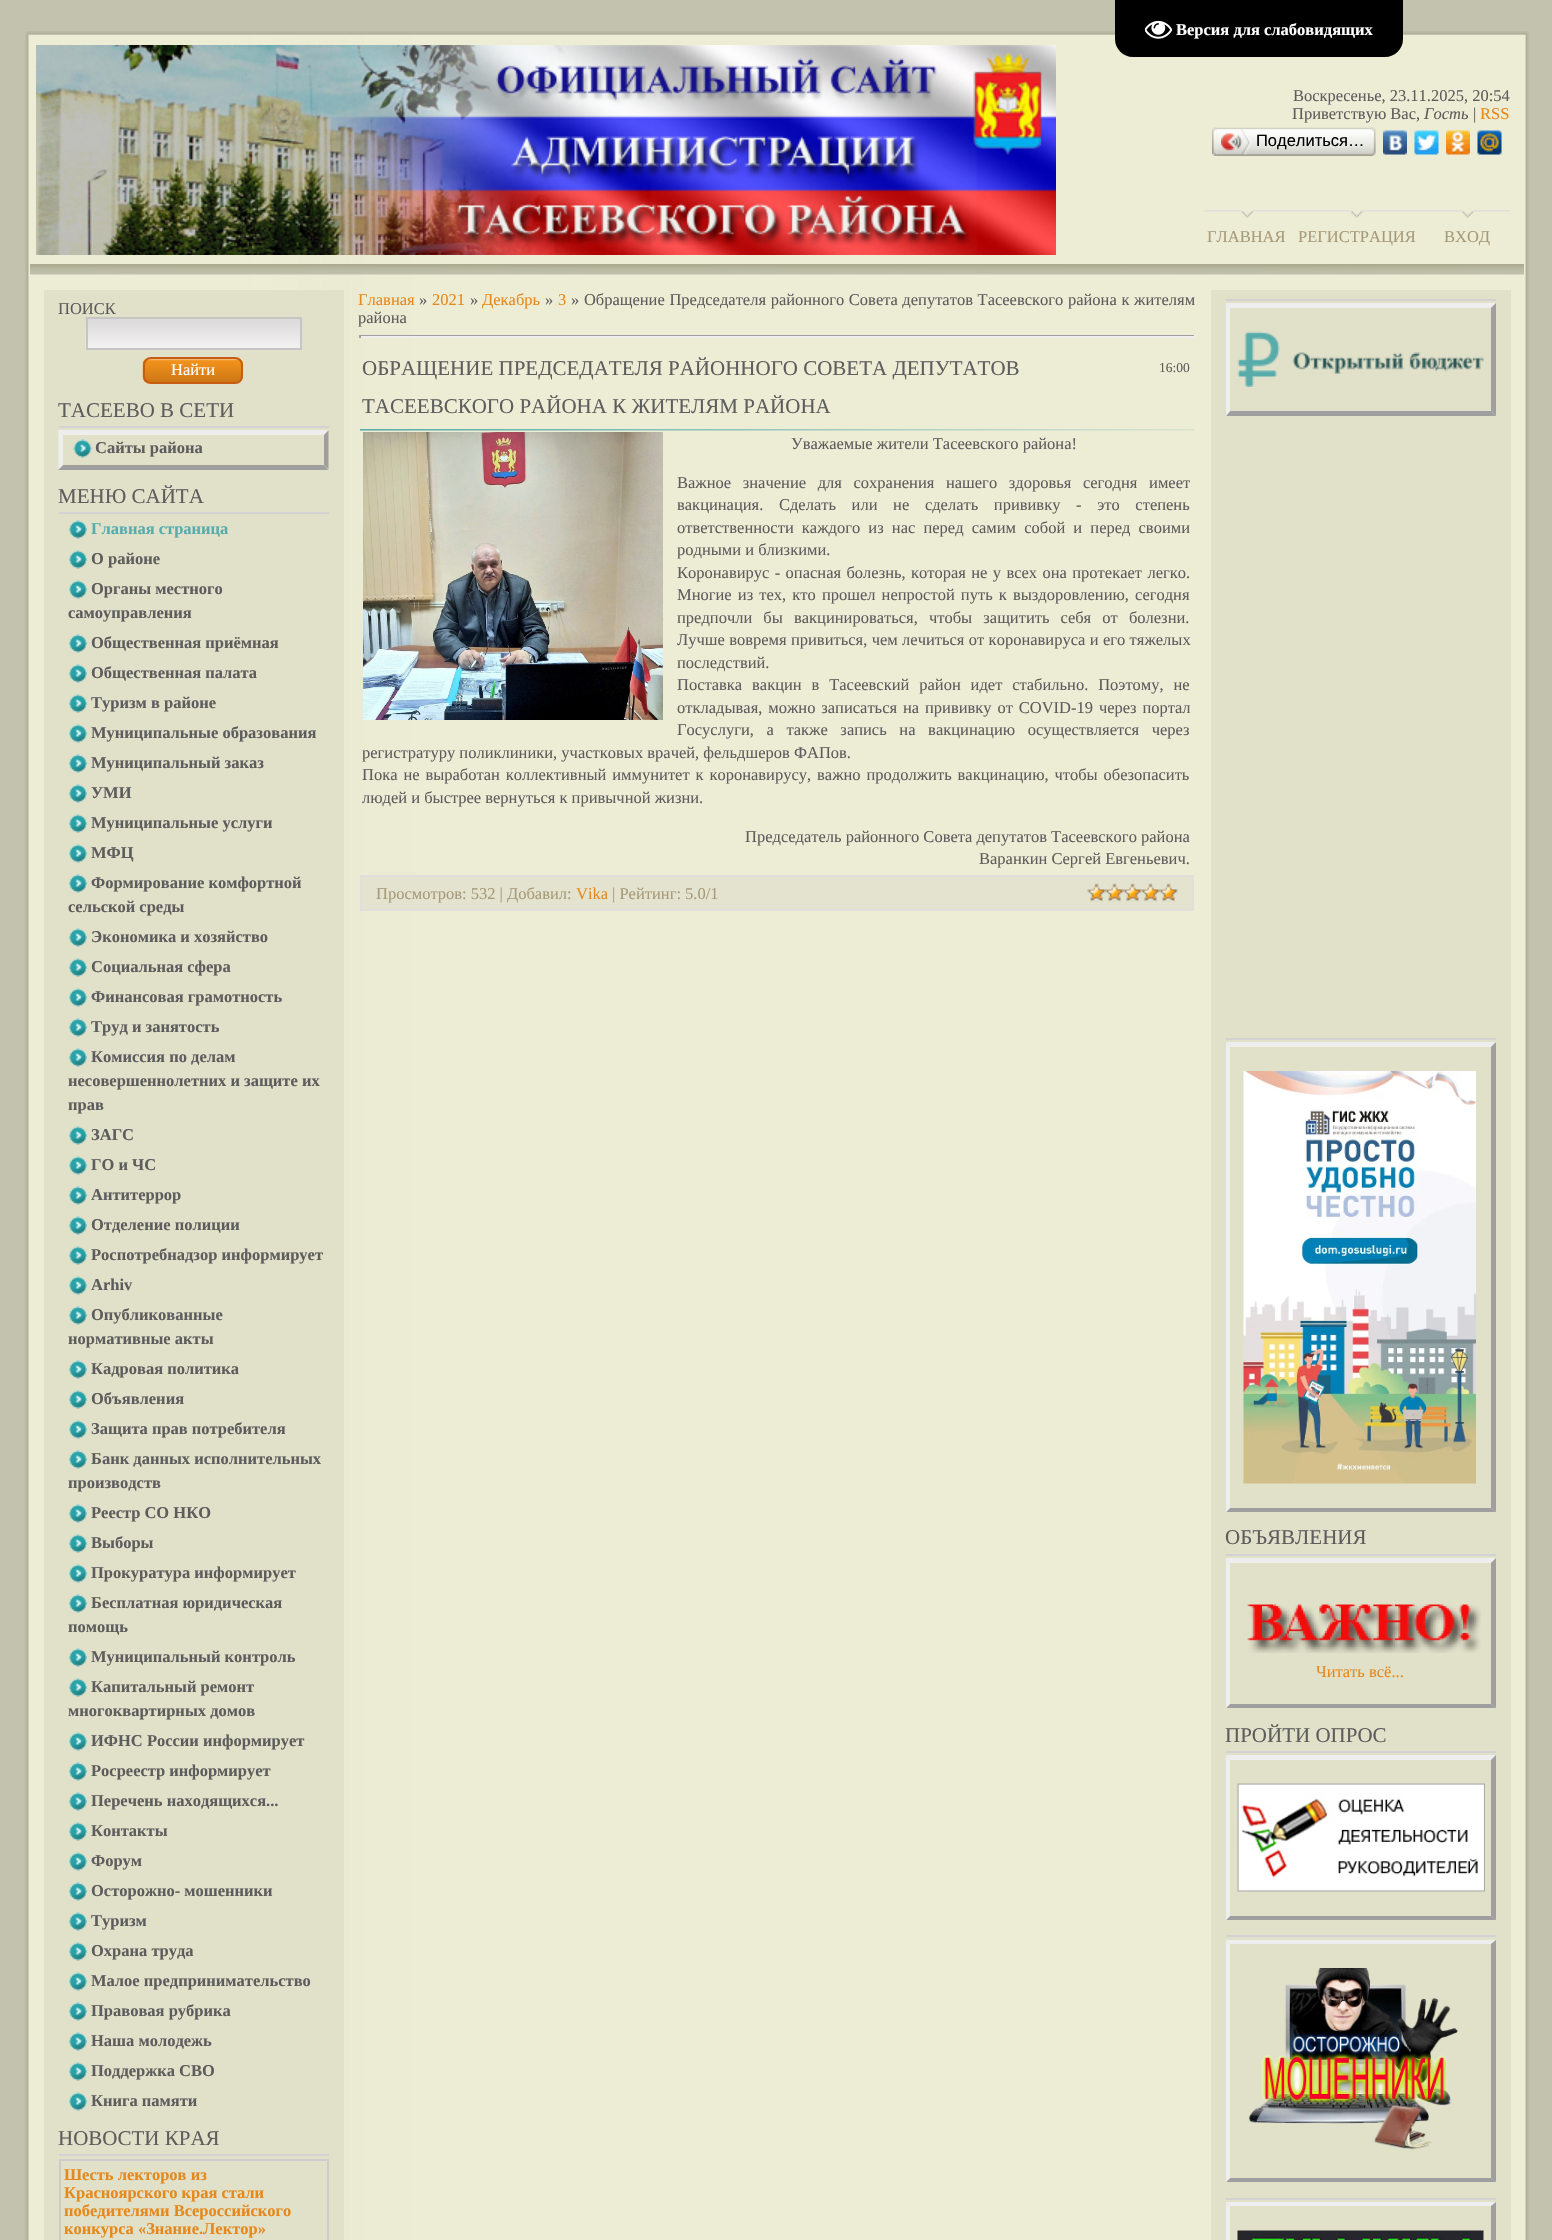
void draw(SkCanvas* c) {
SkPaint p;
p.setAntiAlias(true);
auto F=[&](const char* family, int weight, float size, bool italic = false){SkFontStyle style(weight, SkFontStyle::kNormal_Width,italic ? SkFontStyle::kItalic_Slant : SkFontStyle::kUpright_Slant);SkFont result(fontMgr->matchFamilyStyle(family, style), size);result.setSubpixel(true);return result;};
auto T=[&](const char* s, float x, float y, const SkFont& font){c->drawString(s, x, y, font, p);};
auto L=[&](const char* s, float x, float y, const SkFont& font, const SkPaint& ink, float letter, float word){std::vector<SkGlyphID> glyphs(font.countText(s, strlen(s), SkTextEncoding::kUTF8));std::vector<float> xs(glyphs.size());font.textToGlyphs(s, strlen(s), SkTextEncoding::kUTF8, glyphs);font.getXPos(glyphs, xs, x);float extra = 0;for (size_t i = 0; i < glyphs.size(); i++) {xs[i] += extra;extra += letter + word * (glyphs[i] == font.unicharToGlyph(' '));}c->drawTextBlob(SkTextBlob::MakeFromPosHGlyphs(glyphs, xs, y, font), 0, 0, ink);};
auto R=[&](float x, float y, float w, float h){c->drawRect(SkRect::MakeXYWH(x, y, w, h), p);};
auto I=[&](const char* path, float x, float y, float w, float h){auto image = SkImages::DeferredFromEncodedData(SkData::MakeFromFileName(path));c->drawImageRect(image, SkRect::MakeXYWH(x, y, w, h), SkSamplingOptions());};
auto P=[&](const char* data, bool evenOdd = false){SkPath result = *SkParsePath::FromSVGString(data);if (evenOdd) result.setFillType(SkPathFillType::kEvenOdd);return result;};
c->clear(0xffc3c2ae);
I("3.png",25,34,1504,2206);
I("2.png",25,31,1504,4);
p.setColor(0xff000000);
c->drawPath(P("M1115 0h288v39c0 10-8 18-18 18h-252c-10 0-18-8-18-18z"),p);
I("1.png",1145,20,27,19);
auto f1 = F("Liberation Serif",700,16.5);
p.setColor(0xffffffff);
T("Версия для слабовидящих",1176,35,f1);
I("4.png",36,45,1020,210);
auto f2 = F("Liberation Serif",400,16.5);
p.setColor(0xff5d5d5d);
T("Воскресенье, 23.11.2025, 20:54",1293,101,f2);
T("Приветствую Вас,",1292,119,f2);
auto f3 = F("Liberation Serif",400,16.5,true);
T("Гость",1424,119,f3);
T("|",1473,119,f2);
p.setColor(0xffe5891c);
T("RSS",1480,119,f2);
I("5.png",1216,127,155,29);
I("6.png",1212,127,5,29);
I("7.png",1221,129,30,26);
auto f4 = F("Liberation Sans",400,16.5);
p.setColor(0xff000000);
T("Поделиться…",1256,146,f4);
I("8.png",1371,127,5,29);
I("9.png",1383,130,24,25);
I("10.png",1414,130,25,25);
I("11.png",1446,130,24,25);
I("12.png",1477,130,25,25);
I("13.png",1204,210,86,8);
p.setColor(0xffa79a78);
T("ГЛАВНАЯ",1207,242,f2);
I("14.png",1290,210,135,8);
T("РЕГИСТРАЦИЯ",1298,242,f2);
I("15.png",1425,210,86,8);
T("ВХОД",1444,242,f2);
I("16.png",30,264,1494,11);
p.setColor(0xffe1e0c9);
R(44,290,300,1950);
p.setColor(0xff5d5d5d);
T("ПОИСК",58,314,f2);
I("17.png",85,318,215,30);
p.setStroke(true);
p.setStrokeWidth(2);
p.setColor(0xffc5c5c5);
c->drawRect(SkRect::MakeXYWH(87,318,214,31),p);
I("18.png",142,358,101,26);
p.setColor(0xffc75d11);
c->drawRoundRect(SkRect::MakeXYWH(144,358,98,25),7,7,p);
p.setStroke(false);
p.setColor(0xffffffff);
T("Найти",171,375,f2);
auto f5 = F("Liberation Serif",400,21);
p.setColor(0xff5d5d5d);
T("ТАСЕЕВО В СЕТИ",58,417,f5);
p.setColor(0xffd2d2d2);
R(59,426,270,2);
p.setColor(0xffeeeeee);
c->drawPath(P("M58 430h270l-4 5h-261z"),p);
p.setColor(0xff9f9f9f);
c->drawPath(P("M328.5 430.5v39l-4.5-4.5v-30z"),p);
c->drawPath(P("M328 470h-270l5-5h261z"),p);
p.setColor(0xffeeeeee);
c->drawPath(P("M58.5 469.5v-39l4.5 4.5v30z"),p);
I("19.png",73,439,19,19);
p.setColor(0xff5d5d5d);
T("Сайты района",95,453,f1);
T("МЕНЮ САЙТА",58,503,f5);
p.setColor(0xffd2d2d2);
R(59,512,270,2);
I("20.png",69,520,18,19);
p.setColor(0xff57acac);
T("Главная страница",91,534,f1);
I("20.png",69,550,18,19);
p.setColor(0xff5d5d5d);
T("О районе",91,564,f1);
I("20.png",69,580,18,19);
T("Органы местного",91,594,f1);
T("самоуправления",68,618,f1);
I("20.png",69,634,18,19);
T("Общественная приёмная",91,648,f1);
I("20.png",69,664,18,19);
T("Общественная палата",91,678,f1);
I("20.png",69,694,18,19);
T("Туризм в районе",91,708,f1);
I("20.png",69,724,18,19);
T("Муниципальные образования",91,738,f1);
I("20.png",69,754,18,19);
T("Муниципальный заказ",91,768,f1);
I("20.png",69,784,18,19);
T("УМИ",91,798,f1);
I("20.png",69,814,18,19);
T("Муниципальные услуги",91,828,f1);
I("20.png",69,844,18,19);
T("МФЦ",91,858,f1);
I("20.png",69,874,18,19);
T("Формирование комфортной",91,888,f1);
T("сельской среды",68,912,f1);
I("20.png",69,928,18,19);
T("Экономика и хозяйство",91,942,f1);
I("20.png",69,958,18,19);
T("Социальная сфера",91,972,f1);
I("20.png",69,988,18,19);
T("Финансовая грамотность",91,1002,f1);
I("20.png",69,1018,18,19);
T("Труд и занятость",91,1032,f1);
I("20.png",69,1048,18,19);
T("Комиссия по делам",91,1062,f1);
T("несовершеннолетних и защите их",68,1086,f1);
T("прав",68,1110,f1);
I("20.png",69,1126,18,19);
T("ЗАГС",91,1140,f1);
I("20.png",69,1156,18,19);
T("ГО и ЧС",91,1170,f1);
I("20.png",69,1186,18,19);
T("Антитеррор",91,1200,f1);
I("20.png",69,1216,18,19);
T("Отделение полиции",91,1230,f1);
I("20.png",69,1246,18,19);
T("Роспотребнадзор информирует",91,1260,f1);
I("20.png",69,1276,18,19);
T("Arhiv",91,1290,f1);
I("20.png",69,1306,18,19);
T("Опубликованные",91,1320,f1);
T("нормативные акты",68,1344,f1);
I("20.png",69,1360,18,19);
T("Кадровая политика",91,1374,f1);
I("20.png",69,1390,18,19);
T("Объявления",91,1404,f1);
I("20.png",69,1420,18,19);
T("Защита прав потребителя",91,1434,f1);
I("20.png",69,1450,18,19);
T("Банк данных исполнительных",91,1464,f1);
T("производств",68,1488,f1);
I("20.png",69,1504,18,19);
T("Реестр СО НКО",91,1518,f1);
I("20.png",69,1534,18,19);
T("Выборы",91,1548,f1);
I("20.png",69,1564,18,19);
T("Прокуратура информирует",91,1578,f1);
I("20.png",69,1594,18,19);
T("Бесплатная юридическая",91,1608,f1);
T("помощь",68,1632,f1);
I("20.png",69,1648,18,19);
T("Муниципальный контроль",91,1662,f1);
I("20.png",69,1678,18,19);
T("Капитальный ремонт",91,1692,f1);
T("многоквартирных домов",68,1716,f1);
I("20.png",69,1732,18,19);
T("ИФНС России информирует",91,1746,f1);
I("20.png",69,1762,18,19);
T("Росреестр информирует",91,1776,f1);
I("20.png",69,1792,18,19);
T("Перечень находящихся...",91,1806,f1);
I("20.png",69,1822,18,19);
T("Контакты",91,1836,f1);
I("20.png",69,1852,18,19);
T("Форум",91,1866,f1);
I("20.png",69,1882,18,19);
T("Осторожно- мошенники",91,1896,f1);
I("20.png",69,1912,18,19);
T("Туризм",91,1926,f1);
I("20.png",69,1942,18,19);
T("Охрана труда",91,1956,f1);
I("20.png",69,1972,18,19);
T("Малое предпринимательство",91,1986,f1);
I("20.png",69,2002,18,19);
T("Правовая рубрика",91,2016,f1);
I("20.png",69,2032,18,19);
T("Наша молодежь",91,2046,f1);
I("20.png",69,2062,18,19);
T("Поддержка СВО",91,2076,f1);
I("20.png",69,2092,18,19);
T("Книга памяти",91,2106,f1);
T("НОВОСТИ КРАЯ",58,2145,f5);
p.setColor(0xffd2d2d2);
R(59,2154,270,2);
p.setStroke(true);
p.setColor(0xffcccccc);
c->drawRect(SkRect::MakeXYWH(60,2160,268,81),p);
p.setStroke(false);
p.setColor(0xffe5891c);
T("Шесть лекторов из",64,2180,f1);
T("Красноярского края стали",64,2198,f1);
T("победителями Всероссийского",64,2216,f1);
T("конкурса «Знание.Лектор»",64,2234,f1);
T("Главная",358,305,f2);
p.setColor(0xff5d5d5d);
T("»",419,305,f2);
p.setColor(0xffe5891c);
T("2021",432,305,f2);
p.setColor(0xff5d5d5d);
T("»",470,305,f2);
p.setColor(0xffe5891c);
T("Декабрь",482,305,f2);
p.setColor(0xff5d5d5d);
T("»",545,305,f2);
p.setColor(0xffe5891c);
T("3",558,305,f2);
p.setColor(0xff5d5d5d);
L("» Обращение Председателя районного Совета депутатов Тасеевского района к жителям",571,305,f2,p,0,.5);
T("района",358,323,f2);
p.setColor(0xff9f9f9f);
R(359,335,837,1);
p.setColor(0xffeeeeee);
R(1194,335,2,3);
R(359,336,837,2);
p.setColor(0xff9f9f9f);
R(359,335,2,3);
p.setColor(0xff5d5d5d);
T("ОБРАЩЕНИЕ ПРЕДСЕДАТЕЛЯ РАЙОННОГО СОВЕТА ДЕПУТАТОВ",362,375,f5);
auto f6 = F("Liberation Serif",400,13.5);
T("16:00",1159,372,f6);
T("ТАСЕЕВСКОГО РАЙОНА К ЖИТЕЛЯМ РАЙОНА",362,413,f5);
I("21.png",360,429,834,2);
I("22.png",363,432,300,288);
T("Уважаемые жители Тасеевского района!",791,449,f2);
L("Важное значение для сохранения нашего здоровья сегодня имеет",677,488,f2,p,0,7.5);
L("вакцинация. Сделать или не сделать прививку - это степень",677,510,f2,p,0,11.5);
L("ответственности каждого из нас перед самим собой и перед своими",677,533,f2,p,0,4);
T("родными и близкими.",677,555,f2);
L("Коронавирус - опасная болезнь, которая не у всех она протекает легко.",677,578,f2,p,0,1.25);
L("Многие из тех, кто прошел непростой путь к выздоровлению, сегодня",677,600,f2,p,0,2);
L("предпочли бы вакцинироваться, чтобы защитить себя от болезни.",677,623,f2,p,0,7);
L("Лучше вовремя привиться, чем лечиться от коронавируса и его тяжелых",677,645,f2,p,0,.25);
T("последствий.",677,668,f2);
L("Поставка вакцин в Тасеевский район идет стабильно. Поэтому, не",677,690,f2,p,0,5.75);
L("откладывая, можно записаться на прививку от COVID-19 через портал",677,713,f2,p,0,1.75);
L("Госуслуги, а также запись на вакцинацию осуществляется через",677,735,f2,p,0,8.5);
T("регистратуру поликлиники, участковых врачей, фельдшеров ФАПов.",362,758,f2);
L("Пока не выработан коллективный иммунитет к коронавирусу, важно продолжить вакцинацию, чтобы обезопасить",362,780,f2,p,0,1.75);
T("людей и быстрее вернуться к привычной жизни.",362,803,f2);
T("Председатель районного Совета депутатов Тасеевского района",745,842,f2);
T("Варанкин Сергей Евгеньевич.",979,864,f2);
p.setColor(0xffe4e3cf);
c->drawRect(SkRect::MakeXYWH(361,876,832,34),p);
p.setStroke(true);
p.setColor(0xffe0dfdb);
c->drawRect(SkRect::MakeXYWH(361,876,832,34),p);
p.setStroke(false);
p.setColor(0xffa79a78);
T("Просмотров: 532 | Добавил:",376,899,f2);
p.setColor(0xffe5891c);
T("Vika",576,899,f2);
p.setColor(0xffa79a78);
T("| Рейтинг: 5.0/1",612,899,f2);
I("23.png",1087,883,91,19);
I("24.png",1087,883,91,19);
p.setColor(0xffe1e0c9);
R(1211,290,300,1950);
p.setColor(0xffd2d2d2);
R(1226,299,270,2);
p.setColor(0xffeeeeee);
c->drawPath(P("M1226 303h270l-5 5h-261z"),p);
p.setColor(0xff9f9f9f);
c->drawPath(P("M1496 303v113l-5-5v-103z"),p);
c->drawPath(P("M1496 416h-270l4-5h261z"),p);
p.setColor(0xffeeeeee);
c->drawPath(P("M1226 416v-113l4 5v103z"),p);
I("25.png",1237,331,247,56);
p.setColor(0xffd2d2d2);
R(1226,1038,270,2);
p.setColor(0xffeeeeee);
c->drawPath(P("M1226 1042h270l-5 5h-261z"),p);
p.setColor(0xff9f9f9f);
c->drawPath(P("M1496 1042v470l-5-4v-461z"),p);
c->drawPath(P("M1496 1512h-270l4-4h261z"),p);
p.setColor(0xffeeeeee);
c->drawPath(P("M1226 1512v-470l4 5v461z"),p);
I("26.png",1243,1071,233,413);
p.setColor(0xff5d5d5d);
T("ОБЪЯВЛЕНИЯ",1225,1544,f5);
p.setColor(0xffd2d2d2);
R(1226,1554,270,2);
p.setColor(0xffeeeeee);
c->drawPath(P("M1226 1558h270l-5 5h-261z"),p);
p.setColor(0xff9f9f9f);
c->drawPath(P("M1496 1558v150l-5-4v-141z"),p);
c->drawPath(P("M1496 1708h-270l4-4h261z"),p);
p.setColor(0xffeeeeee);
c->drawPath(P("M1226 1708v-150l4 5v141z"),p);
I("27.png",1247,1604,234,49);
p.setColor(0xffe5891c);
T("Читать всё...",1316,1677,f2);
p.setColor(0xff5d5d5d);
T("ПРОЙТИ ОПРОС",1225,1742,f5);
p.setColor(0xffd2d2d2);
R(1226,1751,270,2);
p.setColor(0xffeeeeee);
c->drawPath(P("M1226 1755h270l-5 5h-261z"),p);
p.setColor(0xff9f9f9f);
c->drawPath(P("M1496 1755v165l-5-4v-156z"),p);
c->drawPath(P("M1496 1920h-270l4-4h261z"),p);
p.setColor(0xffeeeeee);
c->drawPath(P("M1226 1920v-165l4 5v156z"),p);
I("28.png",1237,1783,248,109);
p.setColor(0xffd2d2d2);
R(1226,1935,270,2);
p.setColor(0xffeeeeee);
c->drawPath(P("M1226 1940h270l-5 4h-261z"),p);
p.setColor(0xff9f9f9f);
c->drawPath(P("M1496 1940v242l-5-4v-234z"),p);
c->drawPath(P("M1496 2182h-270l4-4h261z"),p);
p.setColor(0xffeeeeee);
c->drawPath(P("M1226 2182v-242l4 4v234z"),p);
I("29.png",1249,1968,209,182);
p.setColor(0xffd2d2d2);
R(1226,2198,270,2);
p.setColor(0xffeeeeee);
c->drawPath(P("M1226 2202h270l-5 4h-261z"),p);
p.setColor(0xff9f9f9f);
c->drawPath(P("M1496 2202v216l-5-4v-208z"),p);
p.setColor(0xffeeeeee);
c->drawPath(P("M1226 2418v-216l4 4v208z"),p);
I("30.png",1237,2230,247,10);
}
